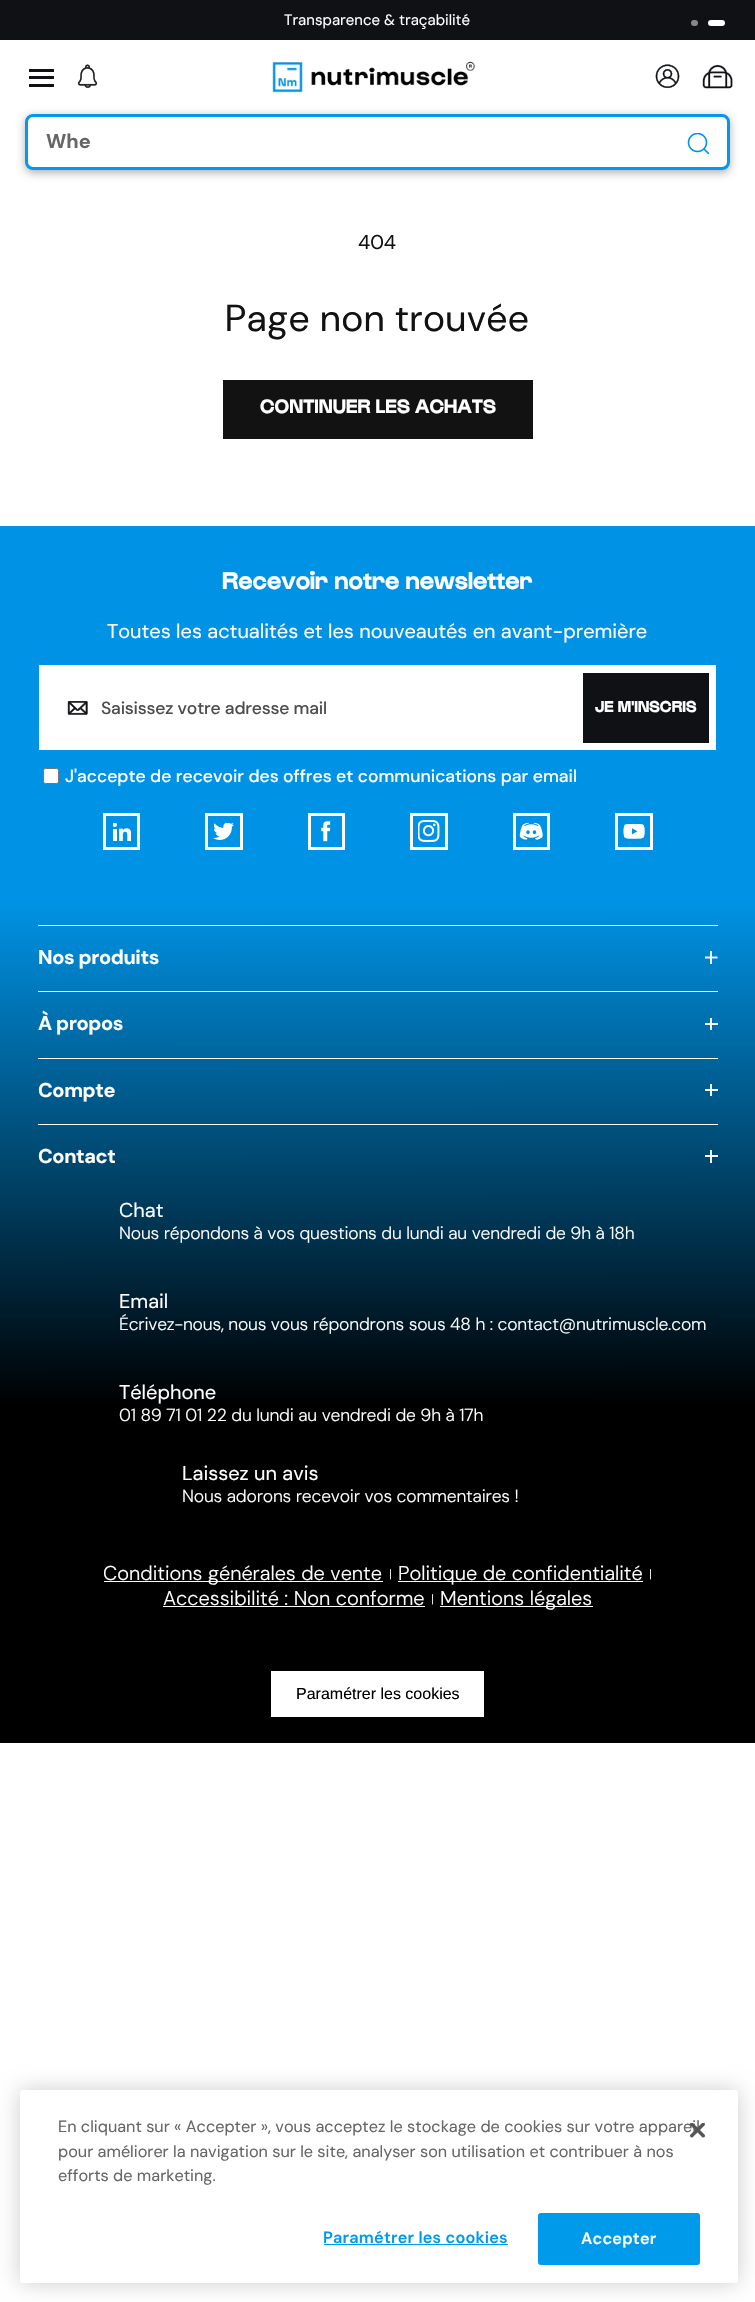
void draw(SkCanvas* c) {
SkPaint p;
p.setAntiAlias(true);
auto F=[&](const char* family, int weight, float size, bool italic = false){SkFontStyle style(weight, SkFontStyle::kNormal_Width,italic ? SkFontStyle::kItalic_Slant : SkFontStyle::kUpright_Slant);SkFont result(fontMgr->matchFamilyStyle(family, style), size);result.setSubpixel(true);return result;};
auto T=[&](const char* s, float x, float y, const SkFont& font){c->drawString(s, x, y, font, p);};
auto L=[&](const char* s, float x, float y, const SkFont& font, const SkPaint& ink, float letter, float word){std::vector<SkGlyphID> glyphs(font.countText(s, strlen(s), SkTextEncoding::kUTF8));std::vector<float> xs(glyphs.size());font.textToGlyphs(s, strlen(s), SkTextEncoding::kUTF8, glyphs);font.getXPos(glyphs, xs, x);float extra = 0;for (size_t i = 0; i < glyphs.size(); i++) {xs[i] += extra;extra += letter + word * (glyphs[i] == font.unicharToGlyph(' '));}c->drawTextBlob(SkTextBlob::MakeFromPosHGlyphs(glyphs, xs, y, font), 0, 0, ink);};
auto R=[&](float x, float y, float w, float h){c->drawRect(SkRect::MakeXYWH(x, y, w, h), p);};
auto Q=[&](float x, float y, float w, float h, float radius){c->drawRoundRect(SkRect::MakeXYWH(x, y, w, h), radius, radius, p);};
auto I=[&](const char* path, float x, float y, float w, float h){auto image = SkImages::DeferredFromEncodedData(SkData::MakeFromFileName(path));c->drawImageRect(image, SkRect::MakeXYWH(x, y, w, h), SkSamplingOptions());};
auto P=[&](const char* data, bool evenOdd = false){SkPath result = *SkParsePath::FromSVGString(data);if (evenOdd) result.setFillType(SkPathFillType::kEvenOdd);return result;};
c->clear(0xffffffff);
p.setColor(0xff0f1114);
R(0,0,755,40);
auto f1 = F("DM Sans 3",400,15);
p.setColor(0xffffffff);
T("Transparence & traçabilité",284,25,f1);
p.setColor(0xff87888a);
Q(691,20,7,6,3);
p.setColor(0xffffffff);
Q(708,20,17,6,3);
p.setColor(0xff0f1114);
R(29,69,25,3);
R(29,76,25,3);
R(29,84,25,3);
I("1.png",77,64,21,24);
I("2.png",272,61,203,32);
I("3.png",655,64,25,25);
I("4.png",702,64,31,25);
p.setColor(0x4d000000);
p.setMaskFilter(SkMaskFilter::MakeBlur(kNormal_SkBlurStyle, 4));
c->drawRoundRect(SkRect::MakeXYWH(25,116,705,57),8,8,p);
p.setMaskFilter(nullptr);
p.setColor(0xffffffff);
c->drawRoundRect(SkRect::MakeXYWH(26.5,115.5,702,53),6.5,6.5,p);
p.setStroke(true);
p.setStrokeWidth(3);
p.setColor(0xff0199ec);
c->drawRoundRect(SkRect::MakeXYWH(26.5,115.5,702,53),6.5,6.5,p);
auto f2 = F("DM Sans",700,20);
p.setStroke(false);
p.setColor(0xff666666);
T("Whe",46,148,f2);
I("5.png",687,133,23,22);
auto f3 = F("DM Sans",400,20);
p.setColor(0xff121212);
T("404",358,249,f3);
auto f4 = F("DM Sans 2",400,37.5);
L("Page non trouvée",225,331,f4,p,.75,0);
R(223,380,310,59);
auto f5 = F("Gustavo",700,20);
p.setColor(0xffffffff);
T("CONTINUER LES ACHATS",260,413,f5);
p.setColor(0xff0093e5);
R(0,526,755,374);
auto f6 = F("Gustavo",700,25);
p.setColor(0xffffffff);
T("Recevoir notre newsletter",222,589,f6);
T("Toutes les actualités et les nouveautés en avant-première",107,638,f3);
R(39,665,677,85);
I("6.png",67,701,21,14);
auto f7 = F("DM Sans",500,17.5);
p.setColor(0xff4d4d4d);
L("Saisissez votre adresse mail",101,714,f7,p,-.18,0);
p.setColor(0xff0f1114);
R(583,673,126,70);
auto f8 = F("Gustavo",700,16.25);
p.setColor(0xffffffff);
T("JE M'INSCRIS",595,712,f8);
c->drawRoundRect(SkRect::MakeXYWH(43.5,768.5,15,15),2,2,p);
p.setStroke(true);
p.setStrokeWidth(1);
p.setColor(0xff767676);
c->drawRoundRect(SkRect::MakeXYWH(43.5,768.5,15,15),2,2,p);
p.setStroke(false);
p.setColor(0xffffffff);
T("J'accepte de recevoir des offres et communications par email",65,782,f7);
p.setStroke(true);
p.setStrokeWidth(3);
c->drawRect(SkRect::MakeXYWH(104.5,814.5,34,34),p);
I("7.png",113,823,18,18);
c->drawRect(SkRect::MakeXYWH(206.5,814.5,35,34),p);
I("8.png",213,823,21,17);
c->drawRect(SkRect::MakeXYWH(309.5,814.5,34,34),p);
I("9.png",321,821,10,21);
c->drawRect(SkRect::MakeXYWH(411.5,814.5,35,34),p);
I("10.png",418,820,22,22);
c->drawRect(SkRect::MakeXYWH(514.5,814.5,34,34),p);
I("11.png",519,822,24,18);
c->drawRect(SkRect::MakeXYWH(616.5,814.5,35,34),p);
I("12.png",623,823,22,16);
p.setStroke(false);
{
const SkColor colors[] = {0xff0093e5,0xff000000,0xff000000};
const float stops[] = {0,.6,1};
const SkPoint ends[] = {{377,900}, {378,1743}};
p.setShader(SkGradientShader::MakeLinear(ends, colors, stops, 3, SkTileMode::kClamp));
p.setAlpha(255);
}
R(0,900,755,843);
{
const SkColor colors[] = {0xfff2fafe,0xfff2f2f2,0xfff2f2f2};
const float stops[] = {0,.6,1};
const SkPoint ends[] = {{377,900}, {378,1743}};
p.setShader(SkGradientShader::MakeLinear(ends, colors, stops, 3, SkTileMode::kClamp));
p.setAlpha(255);
}
R(710,1150,2,13);
R(710,1084,2,12);
R(710,1018,2,12);
p.setShader(nullptr);
p.setColor(0xffffffff);
R(38,925,680,1);
L("Nos produits",38,964,f2,p,-.4,0);
p.setStroke(true);
p.setStrokeWidth(1.9);
c->drawPath(P("M717.5 957.5h-12.5"),p);
p.setStroke(false);
p.setColor(0xf2ffffff);
R(710,951,2,13);
p.setColor(0xffffffff);
R(38,991,680,1);
L("À propos",38,1030,f2,p,-.4,0);
p.setColor(0xfff2f8fb);
R(705,1023,13,2);
p.setColor(0xfffeffff);
R(710,1023,2,2);
p.setColor(0xffffffff);
R(38,1058,680,1);
L("Compte",38,1097,f2,p,-.4,0);
p.setColor(0xfff2f7f9);
R(705,1089,13,2);
p.setColor(0xfffeffff);
R(710,1089,2,2);
p.setColor(0xffffffff);
R(38,1124,680,1);
L("Contact",38,1163,f2,p,-.4,0);
p.setColor(0xfff2f6f8);
R(705,1155,13,2);
p.setColor(0xfffeffff);
R(710,1155,2,2);
p.setColor(0xffffffff);
T("Chat",119,1217,f3);
auto f9 = F("DM Sans",300,17.5);
L("Nous répondons à vos questions du lundi au vendredi de 9h à 18h",119,1239,f9,p,-.18,0);
T("Email",119,1308,f3);
L("Écrivez-nous, nous vous répondrons sous 48 h : contact@nutrimuscle.com",119,1330,f9,p,-.18,0);
T("Téléphone",119,1399,f3);
L("01 89 71 01 22 du lundi au vendredi de 9h à 17h",119,1421,f9,p,-.18,0);
T("Laissez un avis",182,1480,f3);
L("Nous adorons recevoir vos commentaires !",182,1502,f9,p,-.18,0);
R(104,1581,279,1);
auto f10 = F("DM Sans 2",300,20);
T("Conditions générales de vente",103,1580,f10);
auto f11 = F("DM Sans 3",300,12);
T("|",389,1578,f11);
R(398,1581,245,1);
T("Politique de confidentialité",398,1580,f10);
T("|",649,1578,f11);
T("Accessibilité : Non conforme",163,1605,f10);
R(163,1606,262,1);
T("|",431,1603,f11);
R(440,1606,153,1);
T("Mentions légales",440,1605,f10);
R(271,1671,213,46);
auto f12 = F("Liberation Sans",400,16);
p.setColor(0xff000000);
T("Paramétrer les cookies",296,1699,f12);
p.setColor(0x33000000);
p.setMaskFilter(SkMaskFilter::MakeBlur(kNormal_SkBlurStyle, 11));
c->drawRoundRect(SkRect::MakeXYWH(20,2090,718,193),3,3,p);
p.setMaskFilter(nullptr);
p.setColor(0xffffffff);
Q(20,2090,718,193,3);
auto f13 = F("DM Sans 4",400,16.25);
p.setColor(0xff666666);
T("En cliquant sur « Accepter », vous acceptez le stockage de cookies sur votre appareil",58,2132,f13);
T("pour améliorer la navigation sur le site, analyser son utilisation et contribuer à nos",58,2157,f13);
T("efforts de marketing.",58,2181,f13);
I("13.png",690,2123,15,15);
auto f14 = F("DM Sans",600,16.25);
p.setColor(0xff009aeb);
L("Paramétrer les cookies",323,2243,f14,p,.2,0);
R(324,2244,184,1);
c->drawRoundRect(SkRect::MakeXYWH(538.5,2213.5,161,51),2,2,p);
p.setStroke(true);
p.setStrokeWidth(1);
c->drawRoundRect(SkRect::MakeXYWH(538.5,2213.5,161,51),2,2,p);
p.setStroke(false);
p.setColor(0xffffffff);
L("Accepter",581,2244,f14,p,.2,0);
}
